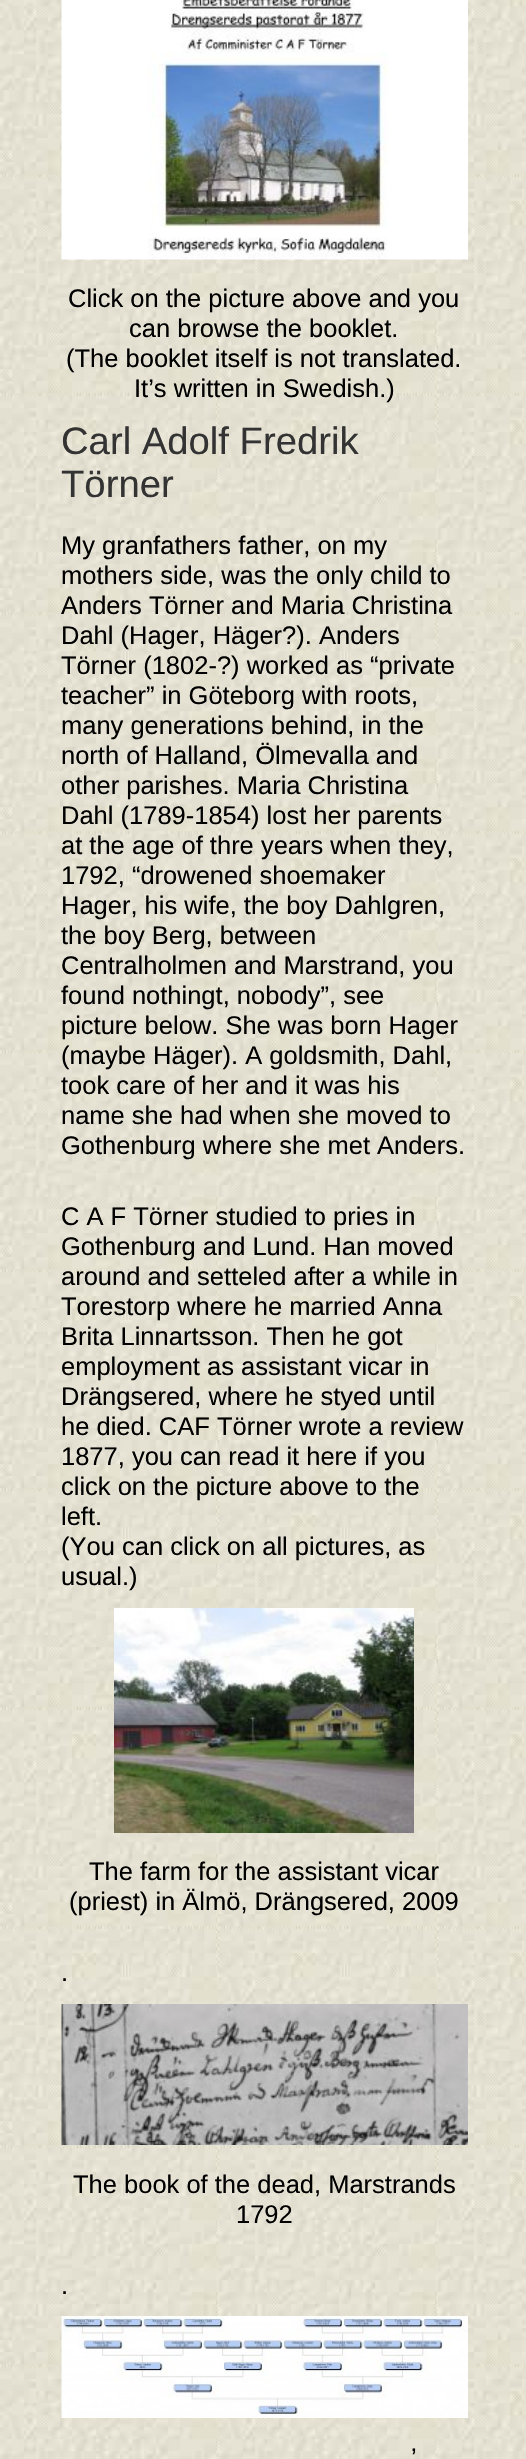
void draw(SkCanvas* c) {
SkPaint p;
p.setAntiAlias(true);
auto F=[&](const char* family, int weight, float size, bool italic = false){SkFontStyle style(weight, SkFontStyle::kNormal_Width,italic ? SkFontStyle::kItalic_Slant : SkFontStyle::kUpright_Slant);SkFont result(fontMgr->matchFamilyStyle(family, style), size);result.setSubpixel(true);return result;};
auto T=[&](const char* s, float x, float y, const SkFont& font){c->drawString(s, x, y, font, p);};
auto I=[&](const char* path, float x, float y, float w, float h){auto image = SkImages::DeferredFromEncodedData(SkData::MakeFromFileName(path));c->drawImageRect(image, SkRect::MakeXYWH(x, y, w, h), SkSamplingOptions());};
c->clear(0xffffffff);
I("1.png",0,0,526,2459);
I("2.png",61,0,407,260);
auto f1 = F("Liberation Sans",400,25.5);
p.setColor(0xff000000);
T("Click on the picture above and you",68,307,f1);
T("can browse the booklet.",129,337,f1);
T("(The booklet itself is not translated.",66,367,f1);
T("It’s written in Swedish.)",134,397,f1);
auto f2 = F("Liberation Sans",400,38.25);
p.setColor(0xff333333);
T("Carl Adolf Fredrik",61,454,f2);
T("Törner",61,497,f2);
p.setColor(0xff000000);
T("My granfathers father, on my",61,554,f1);
T("mothers side, was the only child to",61,584,f1);
T("Anders Törner and Maria Christina",61,614,f1);
T("Dahl (Hager, Häger?). Anders",61,644,f1);
T("Törner (1802-?) worked as “private",61,674,f1);
T("teacher” in Göteborg with roots,",61,704,f1);
T("many generations behind, in the",61,734,f1);
T("north of Halland, Ölmevalla and",61,764,f1);
T("other parishes. Maria Christina",61,794,f1);
T("Dahl (1789-1854) lost her parents",61,824,f1);
T("at the age of thre years when they,",61,854,f1);
T("1792, “drowened shoemaker",61,884,f1);
T("Hager, his wife, the boy Dahlgren,",61,914,f1);
T("the boy Berg, between",61,944,f1);
T("Centralholmen and Marstrand, you",61,974,f1);
T("found nothingt, nobody”, see",61,1004,f1);
T("picture below. She was born Hager",61,1034,f1);
T("(maybe Häger). A goldsmith, Dahl,",61,1064,f1);
T("took care of her and it was his",61,1094,f1);
T("name she had when she moved to",61,1124,f1);
T("Gothenburg where she met Anders.",61,1154,f1);
T("C A F Törner studied to pries in",61,1225,f1);
T("Gothenburg and Lund. Han moved",61,1255,f1);
T("around and setteled after a while in",61,1285,f1);
T("Torestorp where he married Anna",61,1315,f1);
T("Brita Linnartsson. Then he got",61,1345,f1);
T("employment as assistant vicar in",61,1375,f1);
T("Drängsered, where he styed until",61,1405,f1);
T("he died. CAF Törner wrote a review",61,1435,f1);
T("1877, you can read it here if you",61,1465,f1);
T("click on the picture above to the",61,1495,f1);
T("left.",61,1525,f1);
T("(You can click on all pictures, as",61,1555,f1);
T("usual.)",61,1585,f1);
I("3.png",114,1608,300,225);
T("The farm for the assistant vicar",89,1880,f1);
T("(priest) in Älmö, Drängsered, 2009",69,1910,f1);
T(".",61,1981,f1);
I("4.png",61,2004,407,141);
T("The book of the dead, Marstrands",73,2193,f1);
T("1792",236,2223,f1);
T(".",61,2294,f1);
I("5.png",61,2316,407,102);
T("’",411,2466,f1);
}
